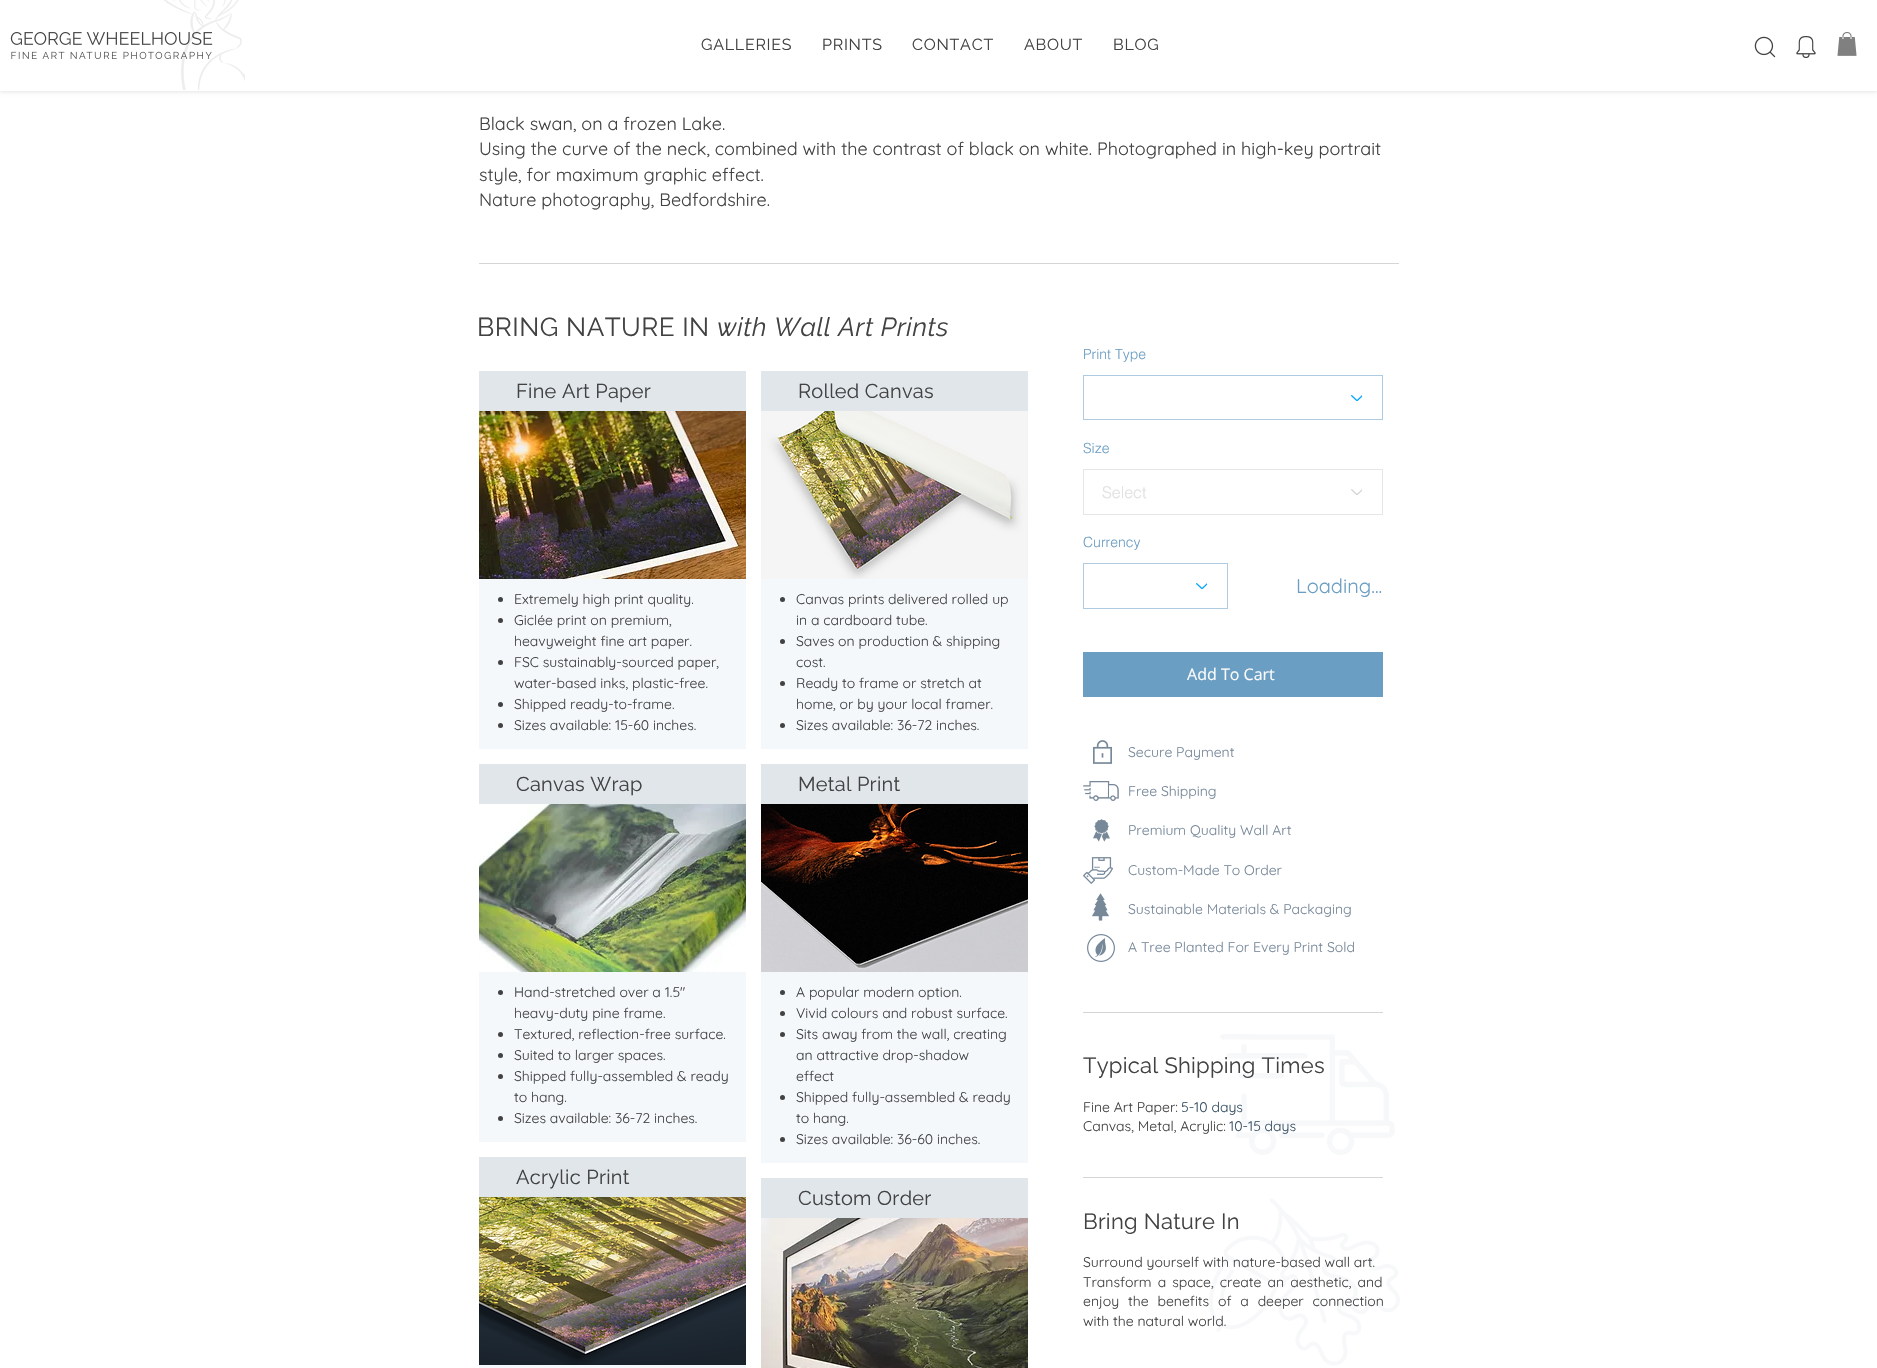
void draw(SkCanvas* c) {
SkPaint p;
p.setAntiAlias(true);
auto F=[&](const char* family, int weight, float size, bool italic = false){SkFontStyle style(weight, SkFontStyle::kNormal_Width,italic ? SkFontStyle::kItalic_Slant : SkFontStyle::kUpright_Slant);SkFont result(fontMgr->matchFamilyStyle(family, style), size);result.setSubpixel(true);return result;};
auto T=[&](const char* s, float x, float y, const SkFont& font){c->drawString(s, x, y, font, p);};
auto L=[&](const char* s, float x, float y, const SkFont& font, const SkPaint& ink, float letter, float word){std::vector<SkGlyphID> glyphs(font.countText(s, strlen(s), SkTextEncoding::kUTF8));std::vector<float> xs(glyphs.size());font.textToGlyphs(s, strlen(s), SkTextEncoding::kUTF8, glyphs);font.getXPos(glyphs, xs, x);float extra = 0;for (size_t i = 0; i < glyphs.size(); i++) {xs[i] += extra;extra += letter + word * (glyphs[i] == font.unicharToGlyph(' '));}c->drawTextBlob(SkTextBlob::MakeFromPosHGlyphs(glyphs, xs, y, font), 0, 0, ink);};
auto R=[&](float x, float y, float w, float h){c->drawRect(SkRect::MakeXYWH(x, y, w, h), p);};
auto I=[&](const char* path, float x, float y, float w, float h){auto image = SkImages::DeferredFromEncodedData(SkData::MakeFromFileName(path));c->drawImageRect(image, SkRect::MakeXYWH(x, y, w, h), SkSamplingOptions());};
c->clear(0xffffffff);
p.setColor(0x1a000000);
p.setMaskFilter(SkMaskFilter::MakeBlur(kNormal_SkBlurStyle, 2));
c->drawRect(SkRect::MakeXYWH(0,1,1877,91),p);
p.setMaskFilter(nullptr);
p.setColor(0xffffffff);
R(0,0,1877,91);
I("1.png",164,0,81,90);
I("2.png",10,32,203,27);
auto f1 = F("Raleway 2",400,16);
p.setColor(0xff424242);
L("GALLERIES",701,50,f1,p,.75,0);
L("PRINTS",822,50,f1,p,.75,0);
L("CONTACT",912,50,f1,p,.75,0);
L("ABOUT",1024,50,f1,p,.75,0);
L("BLOG",1113,50,f1,p,.75,0);
I("3.png",1754,36,22,22);
I("4.png",1796,36,20,22);
I("5.png",1837,32,20,24);
auto f2 = F("Quicksand",400,18);
T("Black swan, on a frozen Lake.",479,130,f2);
T("Using the curve of the neck, combined with the contrast of black on white. Photographed in high-key portrait",479,155,f2);
T("style, for maximum graphic effect.",479,181,f2);
T("Nature photography, Bedfordshire.",479,206,f2);
p.setColor(0xffd5d5d5);
R(479,263,920,1);
auto f3 = F("Raleway",400,26);
p.setColor(0xff424242);
L("BRING NATURE IN",477,336,f3,p,.5,0);
auto f4 = F("Raleway",400,26,true);
L("with Wall Art Prints",717,336,f4,p,.5,0);
p.setColor(0xffe1e6eb);
R(479,371,267,40);
auto f5 = F("Raleway",400,20);
p.setColor(0xff424242);
L("Fine Art Paper",516,398,f5,p,.25,0);
I("6.png",479,411,267,168);
p.setColor(0xfff5f8fb);
R(479,579,267,170);
p.setColor(0xff424242);
c->drawCircle(500.5,599.5,2.5,p);
auto f6 = F("Quicksand",400,14);
T("Extremely high print quality.",514,604,f6);
c->drawCircle(500.5,620.5,2.5,p);
T("Giclée print on premium,",514,625,f6);
T("heavyweight fine art paper.",514,646,f6);
c->drawCircle(500.5,662.5,2.5,p);
T("FSC sustainably-sourced paper,",514,667,f6);
T("water-based inks, plastic-free.",514,688,f6);
c->drawCircle(500.5,704.5,2.5,p);
T("Shipped ready-to-frame.",514,709,f6);
c->drawCircle(500.5,725.5,2.5,p);
T("Sizes available: 15-60 inches.",514,730,f6);
p.setColor(0xffe1e6eb);
R(479,764,267,40);
p.setColor(0xff424242);
L("Canvas Wrap",516,791,f5,p,.25,0);
I("7.png",479,804,267,168);
p.setColor(0xfff5f8fb);
R(479,972,267,170);
p.setColor(0xff424242);
c->drawCircle(500.5,992.5,2.5,p);
T("Hand-stretched over a 1.5\"",514,997,f6);
T("heavy-duty pine frame.",514,1018,f6);
c->drawCircle(500.5,1034.5,2.5,p);
T("Textured, reflection-free surface.",514,1039,f6);
c->drawCircle(500.5,1055.5,2.5,p);
T("Suited to larger spaces.",514,1060,f6);
c->drawCircle(500.5,1076.5,2.5,p);
T("Shipped fully-assembled & ready",514,1081,f6);
T("to hang.",514,1102,f6);
c->drawCircle(500.5,1118.5,2.5,p);
T("Sizes available: 36-72 inches.",514,1123,f6);
p.setColor(0xffe1e6eb);
R(479,1157,267,40);
p.setColor(0xff424242);
L("Acrylic Print",516,1184,f5,p,.25,0);
I("8.png",479,1197,267,168);
p.setColor(0xfff5f8fb);
R(479,1365,267,3);
p.setColor(0xffe1e6eb);
R(761,371,267,40);
p.setColor(0xff424242);
L("Rolled Canvas",798,398,f5,p,.25,0);
I("9.png",761,411,267,168);
p.setColor(0xfff5f8fb);
R(761,579,267,170);
p.setColor(0xff424242);
c->drawCircle(782.5,599.5,2.5,p);
T("Canvas prints delivered rolled up",796,604,f6);
T("in a cardboard tube.",796,625,f6);
c->drawCircle(782.5,641.5,2.5,p);
T("Saves on production & shipping",796,646,f6);
T("cost.",796,667,f6);
c->drawCircle(782.5,683.5,2.5,p);
T("Ready to frame or stretch at",796,688,f6);
T("home, or by your local framer.",796,709,f6);
c->drawCircle(782.5,725.5,2.5,p);
T("Sizes available: 36-72 inches.",796,730,f6);
p.setColor(0xffe1e6eb);
R(761,764,267,40);
p.setColor(0xff424242);
L("Metal Print",798,791,f5,p,.25,0);
I("10.png",761,804,267,168);
p.setColor(0xfff5f8fb);
R(761,972,267,191);
p.setColor(0xff424242);
c->drawCircle(782.5,992.5,2.5,p);
T("A popular modern option.",796,997,f6);
c->drawCircle(782.5,1013.5,2.5,p);
T("Vivid colours and robust surface.",796,1018,f6);
c->drawCircle(782.5,1034.5,2.5,p);
T("Sits away from the wall, creating",796,1039,f6);
T("an attractive drop-shadow",796,1060,f6);
T("effect",796,1081,f6);
c->drawCircle(782.5,1097.5,2.5,p);
T("Shipped fully-assembled & ready",796,1102,f6);
T("to hang.",796,1123,f6);
c->drawCircle(782.5,1139.5,2.5,p);
T("Sizes available: 36-60 inches.",796,1144,f6);
p.setColor(0xffe1e6eb);
R(761,1178,267,40);
p.setColor(0xff424242);
L("Custom Order",798,1205,f5,p,.25,0);
I("11.png",761,1218,267,150);
auto f7 = F("helvetica",300,14);
p.setColor(0xff6b9ec3);
T("Print Type",1083,359,f7);
p.setStroke(true);
p.setStrokeWidth(1);
p.setColor(0xffaecce1);
c->drawRect(SkRect::MakeXYWH(1083.5,375.5,299,44),p);
I("12.png",1351,395,11,6);
p.setStroke(false);
p.setColor(0xff6b9ec3);
T("Size",1083,453,f7);
p.setStroke(true);
p.setColor(0xffe6e6e6);
c->drawRect(SkRect::MakeXYWH(1083.5,469.5,299,45),p);
auto f8 = F("helvetica",300,16);
p.setStroke(false);
p.setColor(0xffe1e1e1);
T("Select",1102,498,f8);
I("13.png",1351,489,11,6);
p.setColor(0xff6b9ec3);
T("Currency",1083,547,f7);
p.setStroke(true);
p.setColor(0xffaecce1);
c->drawRect(SkRect::MakeXYWH(1083.5,563.5,144,45),p);
I("12.png",1196,583,11,6);
auto f9 = F("Quicksand",400,20);
p.setStroke(false);
p.setColor(0xff6b9ec3);
T("Loading...",1296,593,f9);
R(1083,652,300,45);
auto f10 = F("Open Sans",400,16);
p.setColor(0xfffcfcfc);
T("Add To Cart",1187,680,f10);
I("14.png",1093,740,19,24);
p.setColor(0xff778899);
T("Secure Payment",1128,757,f6);
I("15.png",1083,781,36,20);
T("Free Shipping",1128,796,f6);
I("16.png",1093,819,17,23);
T("Premium Quality Wall Art",1128,835,f6);
I("17.png",1083,857,30,27);
T("Custom-Made To Order",1128,875,f6);
I("18.png",1092,893,17,28);
T("Sustainable Materials & Packaging",1128,914,f6);
I("19.png",1087,934,28,28);
T("A Tree Planted For Every Print Sold",1128,952,f6);
p.setColor(0xffd5d5d5);
R(1083,1012,300,1);
auto f11 = F("Raleway",400,22);
p.setColor(0xff424242);
L("Typical Shipping Times",1083,1073,f11,p,.25,0);
p.setColor(0xff364f62);
T("5-10 days",1181,1112,f6);
p.setColor(0xff424242);
T("Canvas, Metal, Acrylic:",1083,1131,f6);
p.setColor(0xff364f62);
T("10-15 days",1229,1131,f6);
I("20.png",1220,1034,175,121);
p.setColor(0xff424242);
T("Fine Art Paper:",1083,1112,f6);
p.setColor(0xffd5d5d5);
R(1083,1177,300,1);
p.setColor(0xff424242);
L("Bring Nature In",1083,1229,f11,p,.25,0);
T("Surround yourself with nature-based wall art.",1083,1267,f6);
L("Transform a space, create an aesthetic, and",1083,1287,f6,p,0,2.25);
L("enjoy the benefits of a deeper connection",1083,1306,f6,p,0,5);
T("with the natural world.",1083,1326,f6);
I("21.png",1209,1198,191,168);
}
